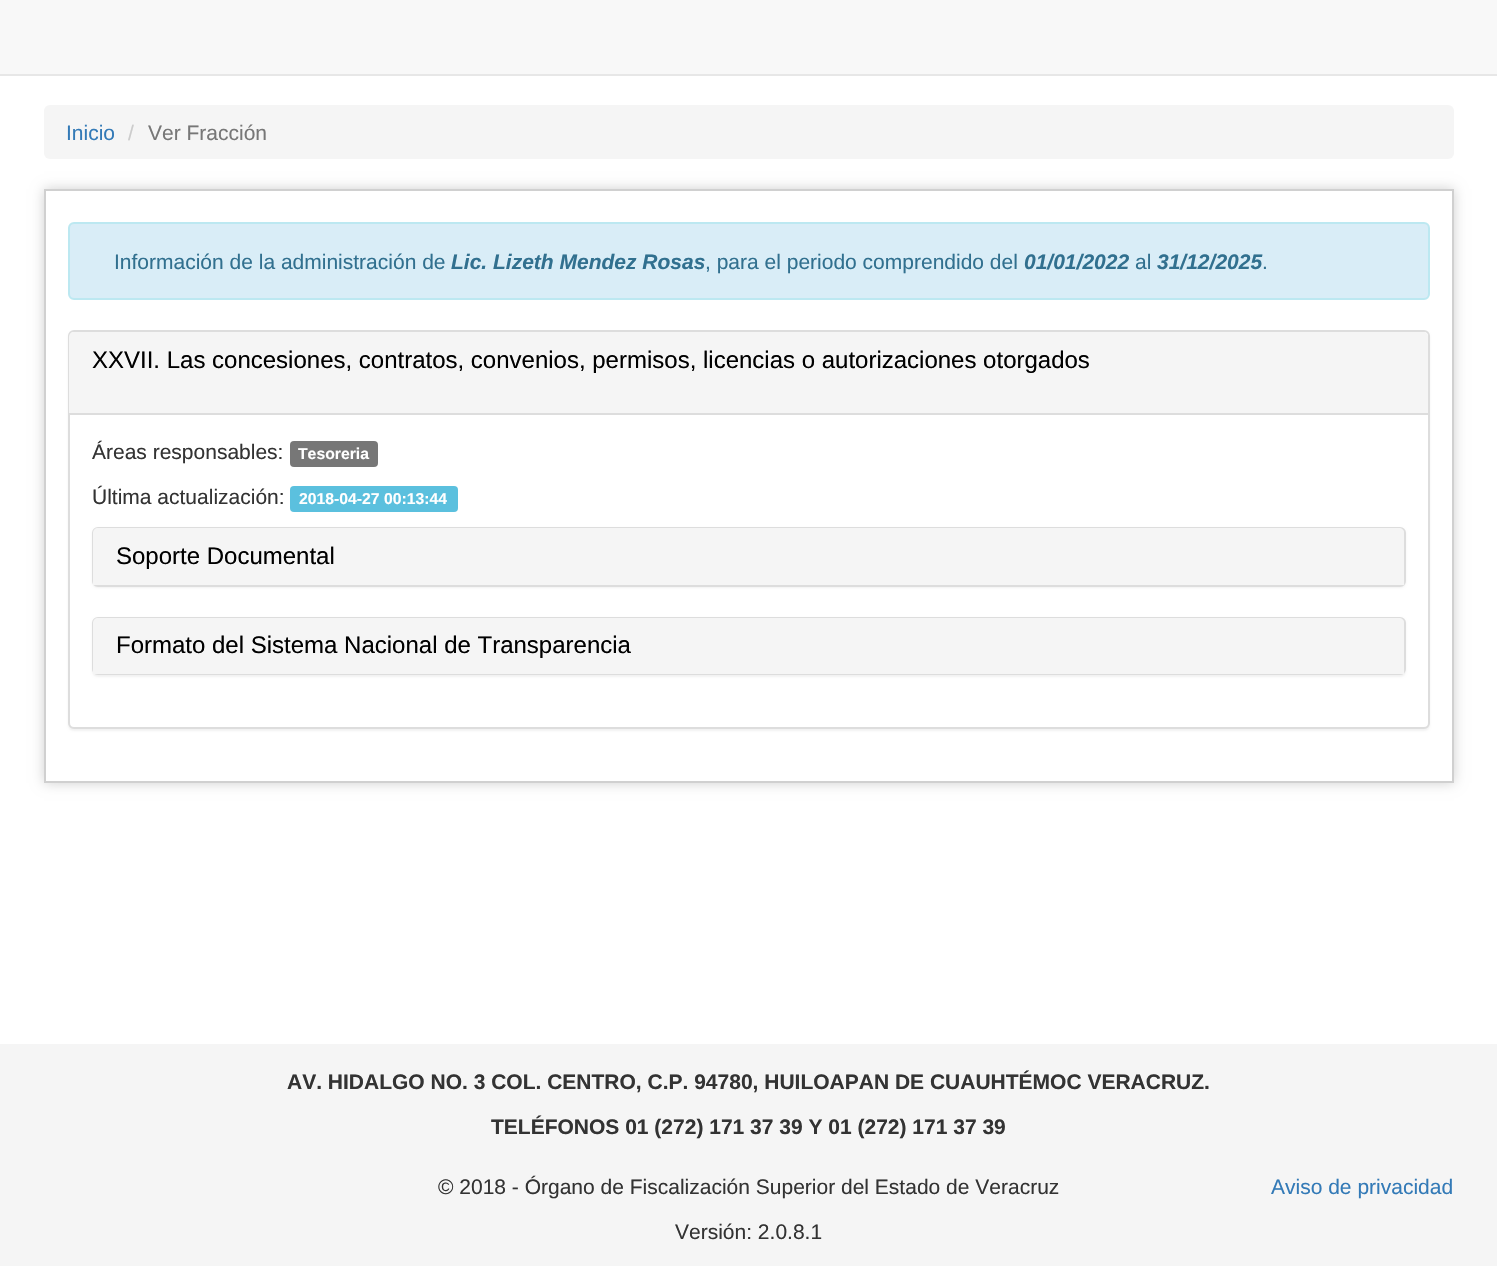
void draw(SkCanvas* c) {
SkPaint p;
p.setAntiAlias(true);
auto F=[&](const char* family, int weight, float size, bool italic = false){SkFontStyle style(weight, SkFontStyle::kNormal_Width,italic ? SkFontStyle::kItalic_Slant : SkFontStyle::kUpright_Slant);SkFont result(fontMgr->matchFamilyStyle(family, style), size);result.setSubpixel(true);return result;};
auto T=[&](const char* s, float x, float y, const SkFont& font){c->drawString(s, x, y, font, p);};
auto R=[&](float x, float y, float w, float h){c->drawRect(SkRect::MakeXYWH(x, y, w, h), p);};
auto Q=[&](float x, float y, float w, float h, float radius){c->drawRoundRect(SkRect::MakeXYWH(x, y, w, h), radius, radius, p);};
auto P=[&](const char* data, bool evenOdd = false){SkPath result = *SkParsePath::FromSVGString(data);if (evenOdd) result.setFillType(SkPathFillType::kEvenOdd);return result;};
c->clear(0xffffffff);
p.setColor(0xfff8f8f8);
R(0,0,1497,74);
p.setColor(0xffe7e7e7);
R(0,74,1497,2);
p.setColor(0xfff5f5f5);
Q(44,105,1410,54,6);
auto f1 = F("Liberation Sans",400,21);
p.setColor(0xff337ab7);
T("Inicio",66,140,f1);
p.setColor(0xffcccccc);
T("/",128,140,f1);
p.setColor(0xff777777);
T("Ver Fracción",148,140,f1);
c->save();
c->clipPath(P("M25 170h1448v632h-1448zm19 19h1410v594h-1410z",true),true);
p.setColor(0xffd0d0d0);
p.setMaskFilter(SkMaskFilter::MakeBlur(kNormal_SkBlurStyle, 6));
c->drawRect(SkRect::MakeXYWH(44,189,1410,594),p);
p.setMaskFilter(nullptr);
c->restore();
p.setStroke(true);
p.setStrokeWidth(2);
c->drawRect(SkRect::MakeXYWH(45,190,1408,592),p);
p.setStroke(false);
p.setColor(0xffd9edf7);
c->drawRoundRect(SkRect::MakeXYWH(69,223,1360,76),5,5,p);
p.setStroke(true);
p.setColor(0xffbce8f1);
c->drawRoundRect(SkRect::MakeXYWH(69,223,1360,76),5,5,p);
p.setStroke(false);
p.setColor(0xff31708f);
T("Información de la administración de",114,269,f1);
auto f2 = F("Liberation Sans",700,21,true);
T("Lic. Lizeth Mendez Rosas",451,269,f2);
T(", para el periodo comprendido del",705,269,f1);
T("01/01/2022",1024,269,f2);
T("al",1135,269,f1);
T("31/12/2025",1157,269,f2);
T(".",1262,269,f1);
p.setColor(0x0d000000);
p.setMaskFilter(SkMaskFilter::MakeBlur(kNormal_SkBlurStyle, 1));
c->drawRoundRect(SkRect::MakeXYWH(68,332,1362,399),6,6,p);
p.setMaskFilter(nullptr);
p.setColor(0xffffffff);
c->drawRoundRect(SkRect::MakeXYWH(69,331,1360,397),5,5,p);
p.setStroke(true);
p.setColor(0xffdddddd);
c->drawRoundRect(SkRect::MakeXYWH(69,331,1360,397),5,5,p);
p.setStroke(false);
p.setColor(0xfff5f5f5);
c->drawPath(P("M74 332h1349c3 0 5 2 5 5v77h-1359v-77c0-3 2-5 5-5z"),p);
p.setColor(0xffdddddd);
R(69,413,1359,2);
auto f3 = F("Liberation Sans",400,24);
p.setColor(0xff000000);
T("XXVII. Las concesiones, contratos, convenios, permisos, licencias o autorizaciones otorgados",92,368,f3);
p.setColor(0xff333333);
T("Áreas responsables:",92,459,f1);
p.setColor(0xff777777);
Q(290,441,88,26,4);
auto f4 = F("Liberation Sans",700,15.75);
p.setColor(0xffffffff);
T("Tesoreria",298,459,f4);
p.setColor(0xff333333);
T("Última actualización:",92,504,f1);
p.setColor(0xff5bc0de);
Q(290,486,168,26,4);
p.setColor(0xffffffff);
T("2018-04-27 00:13:44",299,504,f4);
p.setColor(0x0d000000);
p.setMaskFilter(SkMaskFilter::MakeBlur(kNormal_SkBlurStyle, 1));
c->drawRoundRect(SkRect::MakeXYWH(92,528,1314,60),6,6,p);
p.setMaskFilter(nullptr);
p.setStroke(true);
p.setColor(0xffdddddd);
c->drawRoundRect(SkRect::MakeXYWH(93,528,1312,58),5,5,p);
p.setStroke(false);
p.setColor(0xfff5f5f5);
c->drawPath(P("M98 528h1301c3 0 5 2 5 5v52h-1311v-52c0-3 2-5 5-5z"),p);
p.setColor(0xff000000);
T("Soporte Documental",116,564,f3);
p.setColor(0x0d000000);
p.setMaskFilter(SkMaskFilter::MakeBlur(kNormal_SkBlurStyle, 1));
c->drawRoundRect(SkRect::MakeXYWH(92,618,1314,59),6,6,p);
p.setMaskFilter(nullptr);
p.setStroke(true);
p.setColor(0xffdddddd);
c->drawRoundRect(SkRect::MakeXYWH(93,618,1312,56),5,5,p);
p.setStroke(false);
p.setColor(0xfff5f5f5);
c->drawPath(P("M98 618h1301c3 0 5 2 5 5v51h-1311v-51c0-3 2-5 5-5z"),p);
p.setColor(0xff000000);
T("Formato del Sistema Nacional de Transparencia",116,653,f3);
p.setColor(0xfff5f5f5);
R(0,1044,1497,222);
auto f5 = F("Liberation Sans",700,21);
p.setColor(0xff333333);
T("AV. HIDALGO NO. 3 COL. CENTRO, C.P. 94780, HUILOAPAN DE CUAUHTÉMOC VERACRUZ.",287,1089,f5);
T("TELÉFONOS 01 (272) 171 37 39 Y 01 (272) 171 37 39",491,1134,f5);
T("© 2018 - Órgano de Fiscalización Superior del Estado de Veracruz",438,1194,f1);
T("Versión: 2.0.8.1",675,1239,f1);
p.setColor(0xff337ab7);
T("Aviso de privacidad",1271,1194,f1);
}
